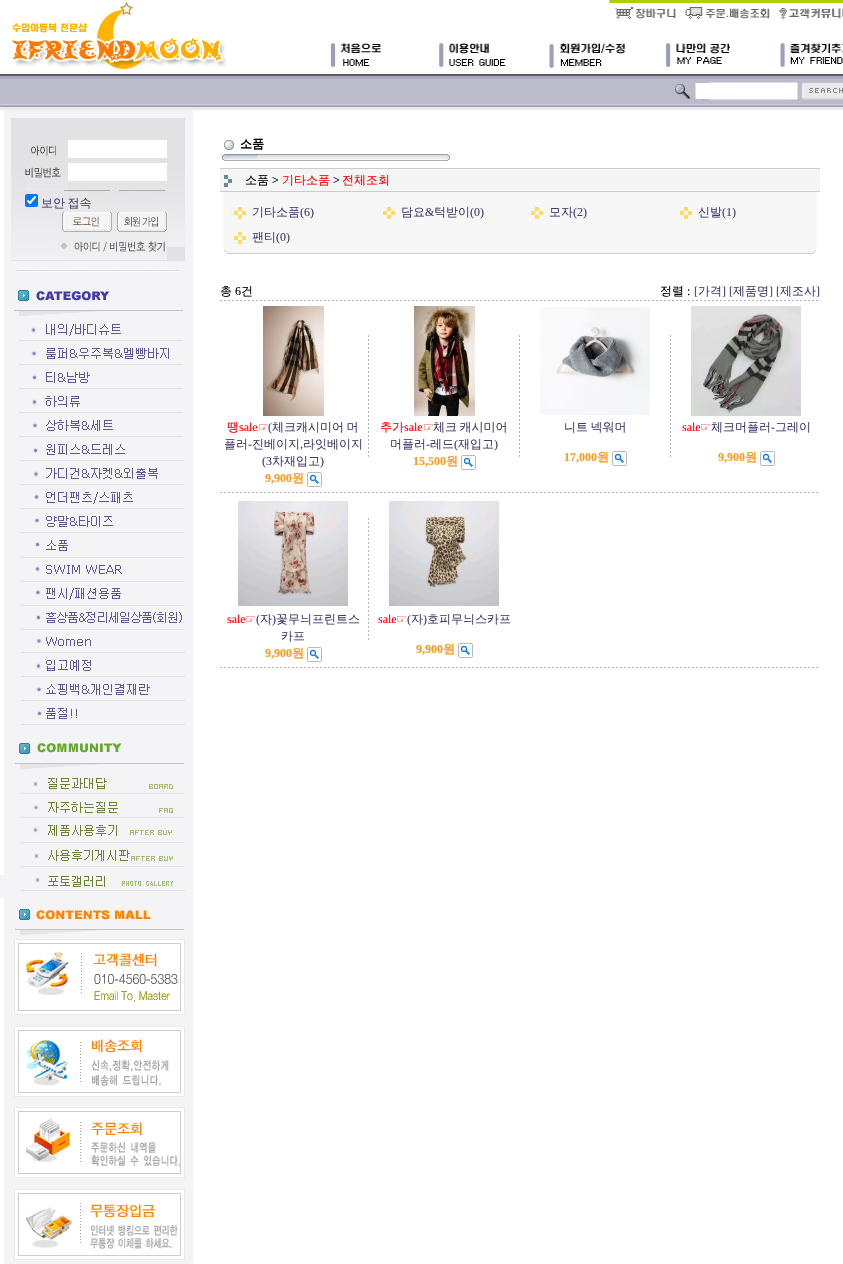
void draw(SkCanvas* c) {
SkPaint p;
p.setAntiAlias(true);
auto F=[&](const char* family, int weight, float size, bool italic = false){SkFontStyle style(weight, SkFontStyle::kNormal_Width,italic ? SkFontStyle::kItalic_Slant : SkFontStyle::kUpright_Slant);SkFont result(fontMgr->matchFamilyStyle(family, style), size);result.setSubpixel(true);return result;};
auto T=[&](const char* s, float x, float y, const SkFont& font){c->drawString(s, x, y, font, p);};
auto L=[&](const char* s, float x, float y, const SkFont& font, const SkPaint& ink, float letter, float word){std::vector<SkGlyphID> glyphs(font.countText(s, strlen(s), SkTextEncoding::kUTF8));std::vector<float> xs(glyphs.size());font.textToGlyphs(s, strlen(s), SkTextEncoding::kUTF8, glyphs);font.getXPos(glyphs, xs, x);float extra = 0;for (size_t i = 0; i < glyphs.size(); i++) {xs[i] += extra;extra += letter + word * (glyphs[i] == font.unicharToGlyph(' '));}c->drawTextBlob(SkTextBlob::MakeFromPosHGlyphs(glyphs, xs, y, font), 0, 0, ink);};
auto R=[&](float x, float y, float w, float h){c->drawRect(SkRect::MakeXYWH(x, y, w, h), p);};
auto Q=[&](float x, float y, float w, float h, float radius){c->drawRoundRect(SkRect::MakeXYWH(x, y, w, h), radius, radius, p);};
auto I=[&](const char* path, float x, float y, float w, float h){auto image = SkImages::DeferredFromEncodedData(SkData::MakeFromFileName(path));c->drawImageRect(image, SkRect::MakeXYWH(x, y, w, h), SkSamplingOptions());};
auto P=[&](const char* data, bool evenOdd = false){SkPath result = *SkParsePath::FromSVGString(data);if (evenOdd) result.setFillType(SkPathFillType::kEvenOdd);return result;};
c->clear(0xffffffff);
I("1.png",12,2,215,67);
I("2.png",330,0,513,68);
I("3.png",0,74,236,37);
I("4.png",236,74,607,9);
I("5.png",236,83,460,16);
I("6.png",797,83,46,16);
I("7.png",236,99,607,11);
p.setColor(0xfff4f4f7);
R(4,111,189,1153);
p.setColor(0xffe2e1e4);
R(11,118,174,17);
I("8.png",11,135,174,126);
I("9.png",25,145,43,46);
p.setColor(0xffffffff);
R(68,140,99,18);
p.setColor(0xfff0f0f3);
R(167,239,18,8);
p.setColor(0xffffffff);
R(68,163,99,18);
I("10.png",68,190,97,1);
p.setColor(0xff0075ff);
Q(25,194,13,13,2);
p.setStroke(true);
p.setStrokeWidth(2.1);
p.setColor(0xffffffff);
c->drawPath(P("M27.5 200.5l2.5 2.5l5.5-6.5"),p);
auto f1 = F("WenQuanYi Zen Hei",500,12);
p.setStroke(false);
p.setColor(0xff473b6b);
L("보안 접속",41,207,f1,p,0,-1);
I("11.png",62,212,50,19);
I("12.png",117,212,50,19);
I("13.png",11,239,51,21);
I("14.png",64,231,46,1);
I("14.png",119,231,46,1);
I("15.png",62,239,105,15);
p.setColor(0xfff0f0f3);
R(62,254,105,6);
I("16.png",17,270,162,2);
I("17.png",14,290,171,435);
I("18.png",0,743,185,155);
I("19.png",14,909,171,351);
I("20.png",224,140,10,10);
auto f2 = F("WenQuanYi Zen Hei",700,12);
p.setColor(0xff000000);
T("소품",240,148,f2);
I("21.png",222,154,228,7);
p.setColor(0xffcccccc);
R(220,168,600,1);
p.setColor(0xfff5f5f5);
R(220,169,600,22);
I("22.png",224,175,8,12);
p.setColor(0xff000000);
T("소품",245,184,f1);
auto f3 = F("Liberation Serif",400,12);
T(">",272,184,f3);
p.setColor(0xffff0000);
T("기타소품",282,184,f1);
p.setColor(0xff000000);
T(">",333,184,f3);
p.setColor(0xffff0000);
T("전체조회",342,184,f1);
p.setColor(0xffcccccc);
R(220,191,600,1);
p.setColor(0xfff7f7f7);
R(223,192,594,58);
I("23.png",234,207,12,12);
p.setColor(0xff473b6b);
T("기타소품",252,216,f1);
T("(6)",300,216,f3);
I("23.png",383,207,12,12);
T("담요",401,216,f1);
T("&",425,216,f3);
T("턱받이",434,216,f1);
T("(0)",470,216,f3);
I("23.png",531,207,12,12);
T("모자",549,216,f1);
T("(2)",573,216,f3);
I("23.png",680,207,12,12);
T("신발",698,216,f1);
T("(1)",722,216,f3);
I("23.png",234,232,12,12);
T("팬티",252,241,f1);
T("(0)",276,241,f3);
I("24.png",223,250,594,4);
p.setColor(0xff000000);
T("총",220,295,f1);
T("6",235,295,f3);
T("건",241,295,f1);
T("정렬",660,295,f1);
T(":",687,295,f3);
p.setColor(0xff473b6b);
T("[",694,295,f3);
T("가격",698,295,f1);
T("] [",722,295,f3);
T("제품명",733,295,f1);
T("] [",769,295,f3);
T("제조사",780,295,f1);
T("]",816,295,f3);
I("25.png",220,300,598,1);
I("26.png",263,306,61,110);
p.setColor(0xffff0000);
T("땡",227,431,f1);
T("sale",239,431,f3);
auto f4 = F("DejaVu Sans",400,12);
T("☞",258,431,f4);
p.setColor(0xff473b6b);
T("(",268,431,f3);
L("체크캐시미어 머",272,431,f1,p,0,-1);
T("플러",224,448,f1);
T("-",248,448,f3);
T("진베이지",252,448,f1);
T("라잇베이지",303,448,f1);
T(",",300,448,f3);
T("(3",262,465,f3);
T("차재입고",272,465,f1);
T(")",320,465,f3);
auto f5 = F("Liberation Serif",700,12);
p.setColor(0xfff89b22);
T("9,900",265,482,f5);
T("원",292,482,f2);
I("27.png",307,472,15,15);
I("28.png",368,335,1,122);
I("29.png",414,306,61,110);
p.setColor(0xffff0000);
T("추가",380,431,f1);
T("sale",404,431,f3);
T("☞",423,431,f4);
p.setColor(0xff473b6b);
L("체크 캐시미어",433,431,f1,p,0,-1);
T("머플러",390,448,f1);
T("-",426,448,f3);
T("레드",430,448,f1);
T("(",454,448,f3);
T("재입고",458,448,f1);
T(")",494,448,f3);
p.setColor(0xfff89b22);
T("15,500",413,465,f5);
T("원",446,465,f2);
I("27.png",461,455,15,15);
I("28.png",519,335,1,122);
I("30.png",540,307,110,108);
p.setColor(0xff473b6b);
L("니트 넥워머",564,431,f1,p,0,-1);
p.setColor(0xfff89b22);
T("17,000",564,461,f5);
T("원",597,461,f2);
I("27.png",612,451,15,15);
I("28.png",670,335,1,122);
I("31.png",691,306,110,110);
p.setColor(0xffff0000);
T("sale",682,431,f3);
T("☞",700,431,f4);
p.setColor(0xff473b6b);
T("체크머플러",711,431,f1);
T("-",771,431,f3);
T("그레이",775,431,f1);
p.setColor(0xfff89b22);
T("9,900",718,461,f5);
T("원",745,461,f2);
I("27.png",760,451,15,15);
I("25.png",220,492,598,1);
I("32.png",238,501,110,105);
p.setColor(0xffff0000);
T("sale",227,623,f3);
T("☞",245,623,f4);
p.setColor(0xff473b6b);
T("(",256,623,f3);
T("자",260,623,f1);
T(")",272,623,f3);
T("꽃무늬프린트스",276,623,f1);
T("카프",281,640,f1);
p.setColor(0xfff89b22);
T("9,900",265,657,f5);
T("원",292,657,f2);
I("27.png",307,647,15,15);
I("28.png",368,518,1,122);
I("33.png",389,501,110,105);
p.setColor(0xffff0000);
T("sale",378,623,f3);
T("☞",396,623,f4);
p.setColor(0xff473b6b);
T("(",407,623,f3);
T("자",411,623,f1);
T(")",423,623,f3);
T("호피무늬스카프",427,623,f1);
p.setColor(0xfff89b22);
T("9,900",416,653,f5);
T("원",443,653,f2);
I("27.png",458,643,15,15);
I("25.png",220,667,598,1);
}
